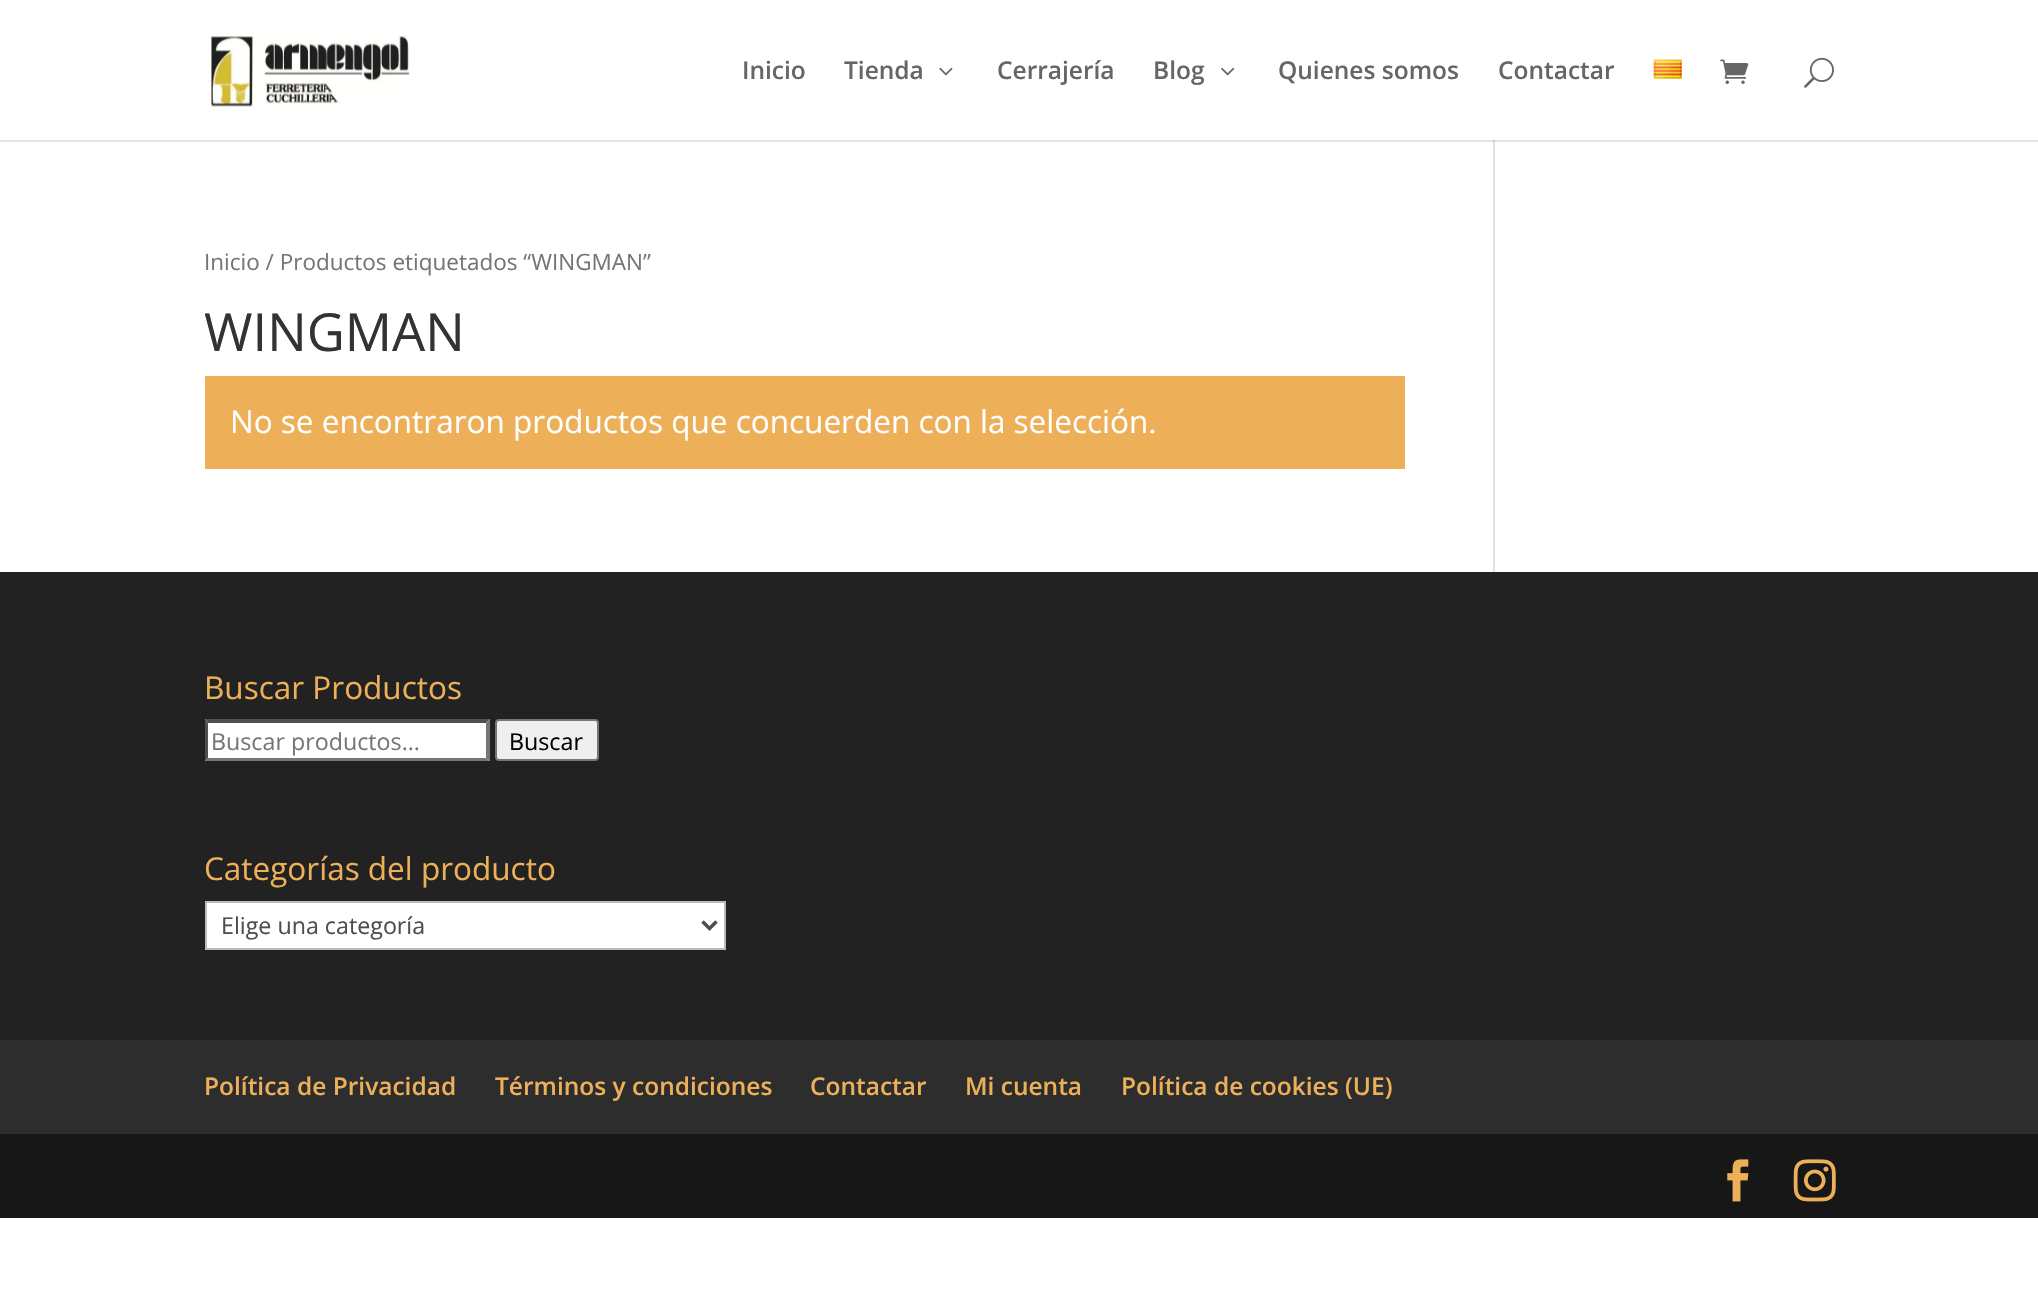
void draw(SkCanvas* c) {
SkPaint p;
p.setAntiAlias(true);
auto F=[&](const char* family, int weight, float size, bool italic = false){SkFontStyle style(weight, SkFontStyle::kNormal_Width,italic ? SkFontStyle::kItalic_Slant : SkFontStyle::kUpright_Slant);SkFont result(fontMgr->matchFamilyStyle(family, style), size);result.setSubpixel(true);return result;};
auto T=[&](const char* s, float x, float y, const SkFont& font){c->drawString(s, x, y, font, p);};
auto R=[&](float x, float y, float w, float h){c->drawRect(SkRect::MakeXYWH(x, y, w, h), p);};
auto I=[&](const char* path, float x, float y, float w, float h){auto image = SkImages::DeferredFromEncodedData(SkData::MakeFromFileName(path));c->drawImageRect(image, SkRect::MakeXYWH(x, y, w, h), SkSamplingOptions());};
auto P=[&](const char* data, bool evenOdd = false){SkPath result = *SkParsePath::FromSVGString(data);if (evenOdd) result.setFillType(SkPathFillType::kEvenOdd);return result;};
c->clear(0xffffffff);
p.setColor(0xffe2e2e2);
R(1493,140,2,432);
p.setColor(0x1a000000);
c->drawPath(P("M0 140v2h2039v-140v138z"),p);
I("1.png",210,32,200,76);
auto f1 = F("Open Sans",600,24.5);
p.setColor(0xff666666);
T("Inicio",742,79,f1);
T("Tienda",844,79,f1);
I("2.png",939,67,14,9);
T("Cerrajería",997,79,f1);
T("Blog",1153,79,f1);
I("3.png",1221,67,14,9);
T("Quienes somos",1278,79,f1);
T("Contactar",1498,79,f1);
I("4.png",1653,59,29,20);
I("5.png",1720,59,29,25);
I("6.png",1804,57,30,31);
auto f2 = F("Open Sans",400,22.5);
p.setColor(0xff767676);
T("Inicio / Productos etiquetados “WINGMAN”",204,270,f2);
auto f3 = F("Open Sans",400,52.5);
p.setColor(0xff333333);
T("WINGMAN",204,351,f3);
p.setColor(0xffedb059);
R(205,376,1200,93);
auto f4 = F("Open Sans",400,31.5);
p.setColor(0xffffffff);
T("No se encontraron productos que concuerden con la selección.",230,433,f4);
p.setColor(0xff222222);
R(0,572,2038,468);
p.setColor(0xffedb059);
T("Buscar Productos",204,699,f4);
p.setColor(0xffffffff);
R(205,719,285,42);
p.setColor(0xff4f4f4f);
c->drawPath(P("M205 719h285l-4 4h-278z"),p);
p.setColor(0xff767676);
c->drawPath(P("M490 719v42l-4-3v-35z"),p);
c->drawPath(P("M490 761h-285l3-3h278z"),p);
p.setColor(0xff4f4f4f);
c->drawPath(P("M205 761v-42l3 4v35z"),p);
auto f5 = F("Open Sans",400,23.25);
p.setColor(0xff767676);
T("Buscar productos…",211,750,f5);
p.setColor(0xffefefef);
c->drawRoundRect(SkRect::MakeXYWH(496,720,102,40),3,3,p);
p.setStroke(true);
p.setStrokeWidth(2);
p.setColor(0xff767676);
c->drawRoundRect(SkRect::MakeXYWH(496,720,102,40),3,3,p);
p.setStroke(false);
p.setColor(0xff000000);
T("Buscar",509,750,f5);
p.setColor(0xffedb059);
T("Categorías del producto",204,880,f4);
p.setColor(0xffffffff);
c->drawRect(SkRect::MakeXYWH(206,902,519,47),p);
p.setStroke(true);
p.setColor(0xffbbbbbb);
c->drawRect(SkRect::MakeXYWH(206,902,519,47),p);
p.setStrokeWidth(3.5);
p.setColor(0xff4e4e4e);
c->drawPath(P("M702.5 921.5l7 7l7-7"),p);
p.setStroke(false);
T("Elige una categoría",221,934,f5);
p.setColor(0xff2d2d2d);
R(0,1040,2038,94);
p.setColor(0xffedb059);
T("Política de Privacidad",204,1095,f1);
T("Términos y condiciones",495,1095,f1);
T("Contactar",810,1095,f1);
T("Mi cuenta",965,1095,f1);
T("Política de cookies (UE)",1121,1095,f1);
p.setColor(0xff171717);
R(0,1134,2038,84);
I("7.png",1727,1159,22,43);
I("8.png",1793,1159,43,43);
}
